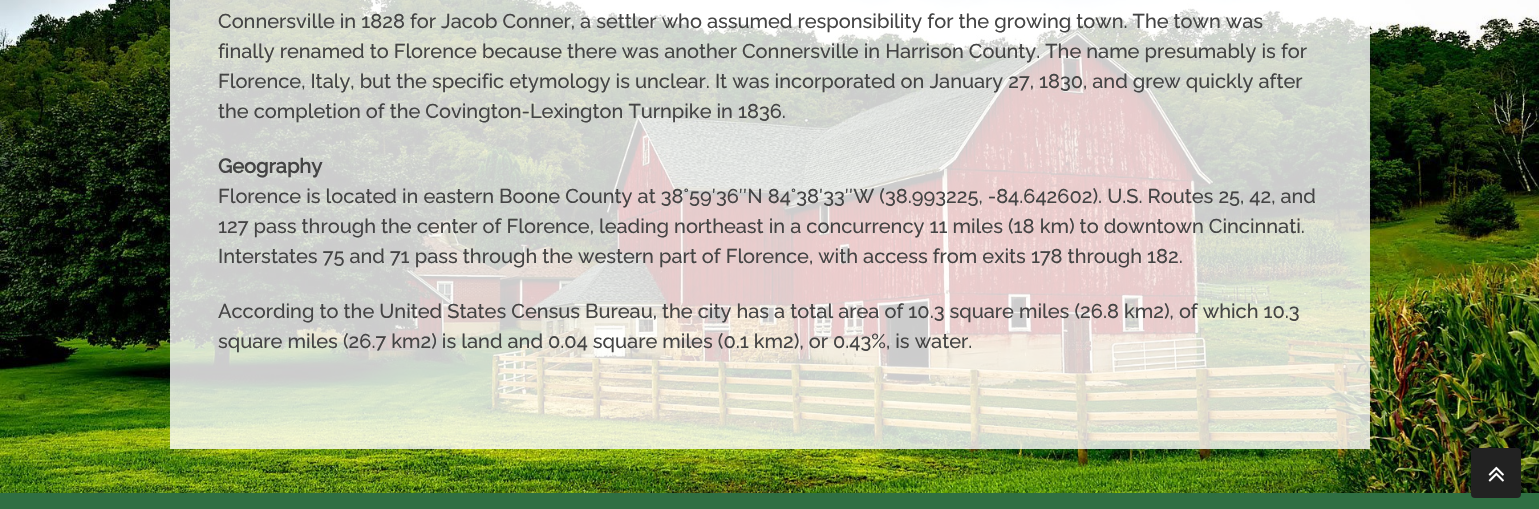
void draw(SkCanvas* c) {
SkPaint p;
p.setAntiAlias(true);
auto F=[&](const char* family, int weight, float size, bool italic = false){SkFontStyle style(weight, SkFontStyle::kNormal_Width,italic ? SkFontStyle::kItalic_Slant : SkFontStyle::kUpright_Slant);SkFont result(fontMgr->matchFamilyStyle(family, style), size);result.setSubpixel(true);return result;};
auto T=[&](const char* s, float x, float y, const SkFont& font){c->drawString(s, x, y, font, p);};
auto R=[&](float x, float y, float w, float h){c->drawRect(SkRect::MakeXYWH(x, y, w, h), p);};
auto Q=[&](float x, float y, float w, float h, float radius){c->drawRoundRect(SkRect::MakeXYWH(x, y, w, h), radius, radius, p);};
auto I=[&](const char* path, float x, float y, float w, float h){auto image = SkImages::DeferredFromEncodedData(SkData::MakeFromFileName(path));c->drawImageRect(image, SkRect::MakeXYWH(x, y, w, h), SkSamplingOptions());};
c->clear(0xffffffff);
I("1.png",0,0,1539,493);
p.setColor(0xccffffff);
R(170,0,1200,449);
auto f1 = F("Raleway",100,20);
p.setColor(0xff444444);
T("Connersville in 1828 for Jacob Conner, a settler who assumed responsibility for the growing town. The town was",218,28,f1);
T("finally renamed to Florence because there was another Connersville in Harrison County. The name presumably is for",218,58,f1);
T("Florence, Italy, but the specific etymology is unclear. It was incorporated on January 27, 1830, and grew quickly after",218,88,f1);
T("the completion of the Covington-Lexington Turnpike in 1836.",218,118,f1);
auto f2 = F("Raleway",700,20);
T("Geography",218,173,f2);
T("Florence is located in eastern Boone County at 38°59′36″N 84°38′33″W (38.993225, -84.642602). U.S. Routes 25, 42, and",218,203,f1);
T("127 pass through the center of Florence, leading northeast in a concurrency 11 miles (18 km) to downtown Cincinnati.",218,233,f1);
T("Interstates 75 and 71 pass through the western part of Florence, with access from exits 178 through 182.",218,263,f1);
T("According to the United States Census Bureau, the city has a total area of 10.3 square miles (26.8 km2), of which 10.3",218,318,f1);
T("square miles (26.7 km2) is land and 0.04 square miles (0.1 km2), or 0.43%, is water.",218,348,f1);
p.setColor(0xff2f6f43);
R(0,493,1539,16);
p.setColor(0xff222222);
Q(1471,448,50,50,4);
I("2.png",1488,466,16,16);
}
